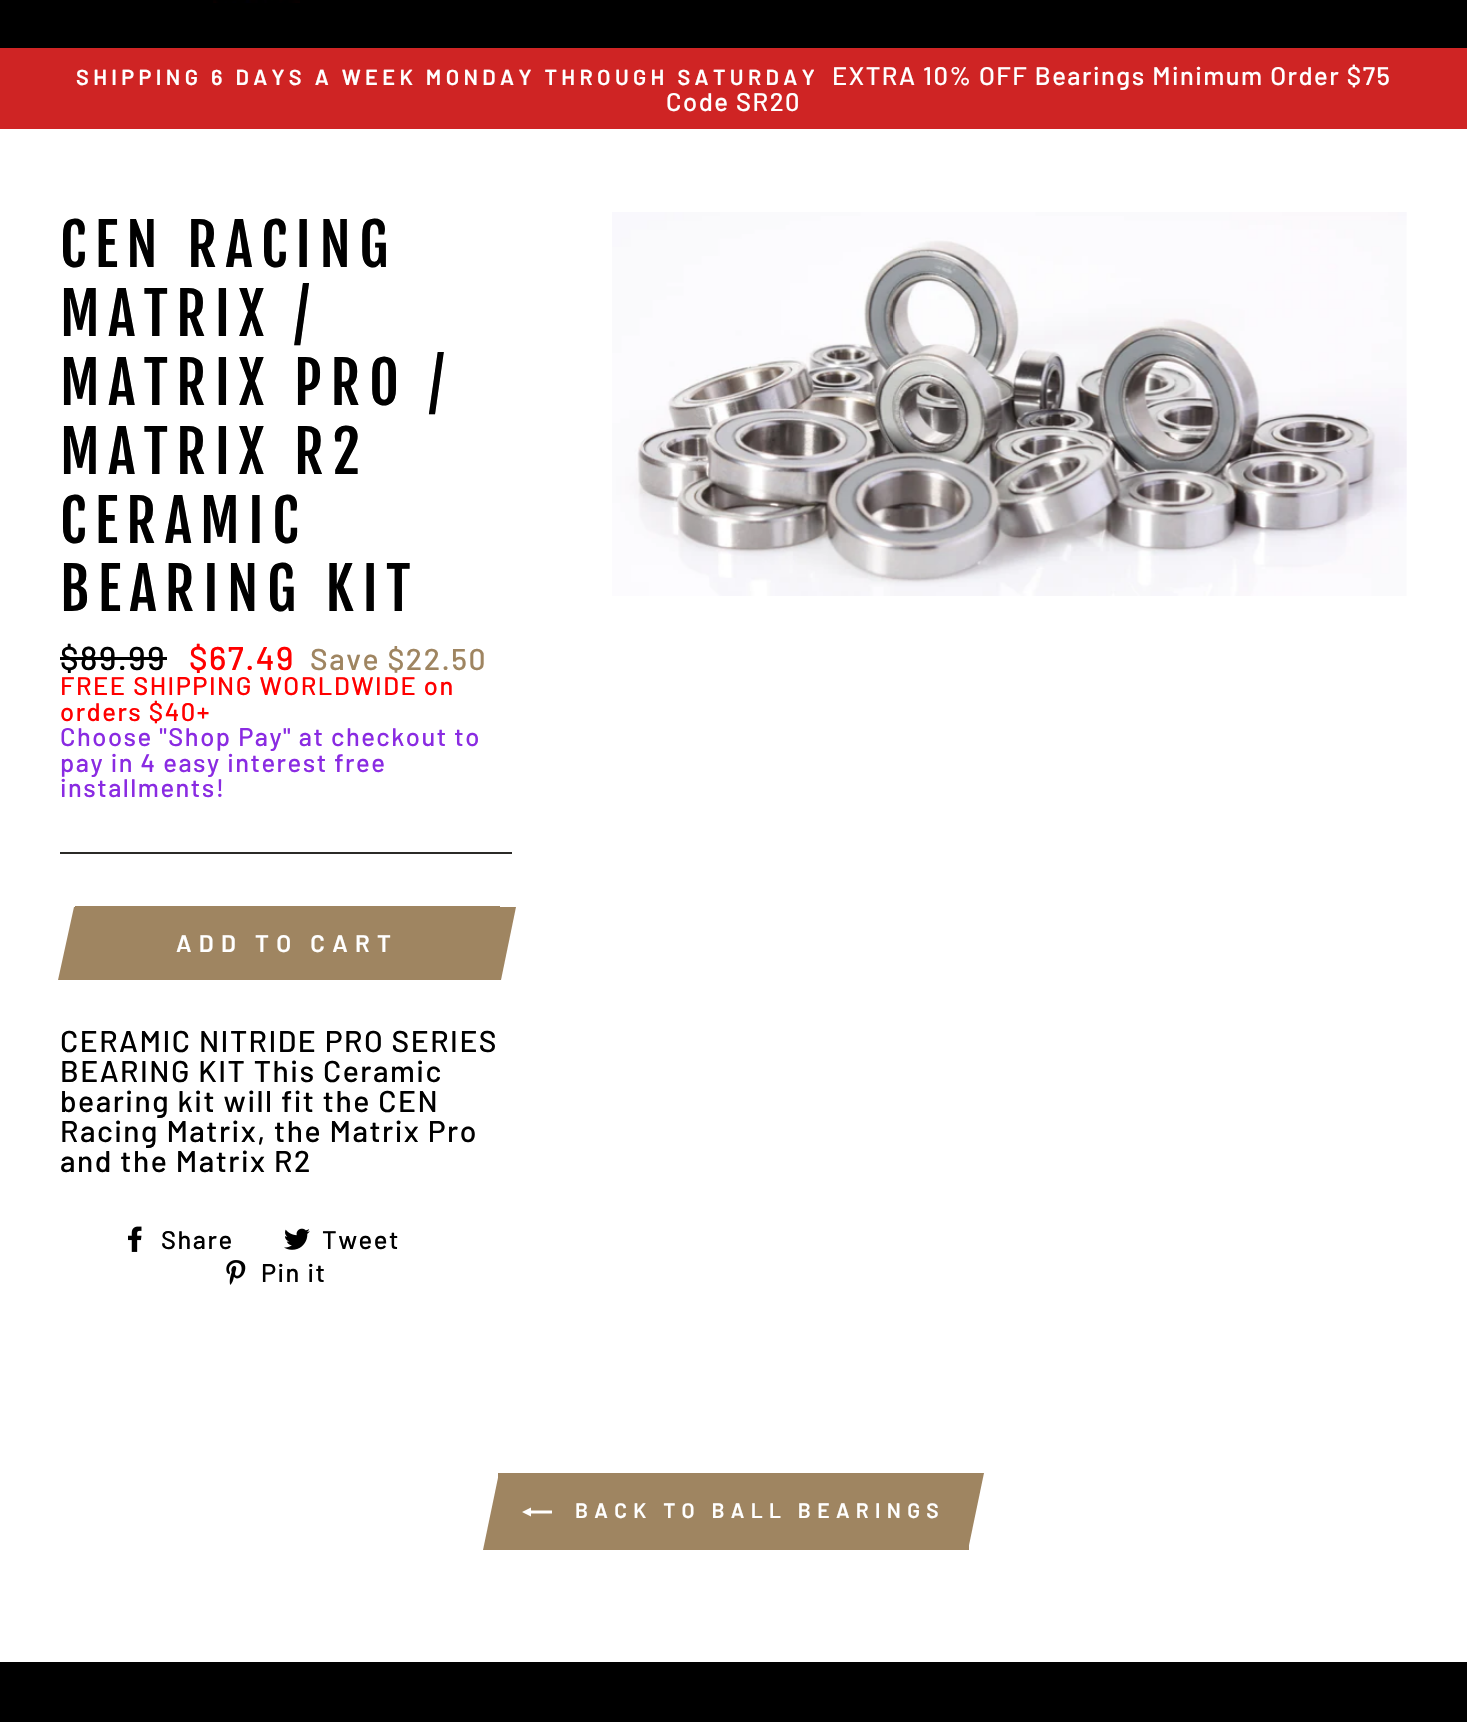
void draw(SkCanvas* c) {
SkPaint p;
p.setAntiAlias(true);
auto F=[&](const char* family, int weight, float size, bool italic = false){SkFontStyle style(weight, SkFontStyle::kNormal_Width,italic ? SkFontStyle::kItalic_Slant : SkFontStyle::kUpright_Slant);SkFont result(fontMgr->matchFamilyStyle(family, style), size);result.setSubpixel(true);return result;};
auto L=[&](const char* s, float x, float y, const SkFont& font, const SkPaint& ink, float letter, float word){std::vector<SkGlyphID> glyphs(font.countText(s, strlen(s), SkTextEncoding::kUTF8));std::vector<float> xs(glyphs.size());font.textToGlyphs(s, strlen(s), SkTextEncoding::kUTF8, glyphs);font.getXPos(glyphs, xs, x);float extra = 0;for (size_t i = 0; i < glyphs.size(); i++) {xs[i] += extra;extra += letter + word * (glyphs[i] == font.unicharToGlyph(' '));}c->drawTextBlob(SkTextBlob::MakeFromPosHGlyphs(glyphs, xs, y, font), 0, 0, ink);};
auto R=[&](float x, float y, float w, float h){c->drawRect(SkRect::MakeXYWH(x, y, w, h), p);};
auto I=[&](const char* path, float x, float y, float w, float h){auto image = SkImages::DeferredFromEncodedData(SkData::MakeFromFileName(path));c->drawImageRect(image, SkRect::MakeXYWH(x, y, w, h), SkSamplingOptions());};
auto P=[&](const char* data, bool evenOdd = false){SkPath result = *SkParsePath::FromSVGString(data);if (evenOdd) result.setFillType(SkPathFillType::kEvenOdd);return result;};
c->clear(0xffffffff);
p.setColor(0xff000000);
R(0,0,1467,48);
I("1.png",213,0,87,3);
p.setColor(0xffcf2424);
R(0,48,1467,81);
auto f1 = F("Barlow",600,21.65);
p.setColor(0xffffffff);
L("SHIPPING 6 DAYS A WEEK MONDAY THROUGH SATURDAY",76,85,f1,p,4.35,0);
auto f2 = F("Barlow",500,25.5);
L("EXTRA 10% OFF Bearings Minimum Order $75",832,85,f2,p,1.5,0);
L("Code SR20",666,111,f2,p,1.5,0);
auto f3 = F("Fjalla One",400,57.5);
p.setColor(0xff000000);
L("CEN RACING",60,267,f3,p,8.6,0);
L("MATRIX /",60,336,f3,p,8.6,0);
L("MATRIX PRO /",60,405,f3,p,8.6,0);
L("MATRIX R2",60,474,f3,p,8.6,0);
L("CERAMIC",60,543,f3,p,8.6,0);
L("BEARING KIT",60,611,f3,p,8.6,0);
auto f4 = F("Barlow",500,33);
L("$89.99",60,670,f4,p,1.5,0);
R(60,657,107,3);
p.setColor(0xffff0000);
L("$67.49",189,670,f4,p,1.5,0);
auto f5 = F("Barlow",500,30);
p.setColor(0xff9f8561);
L("Save $22.50",310,670,f5,p,1.5,0);
p.setColor(0xffff0000);
L("FREE SHIPPING WORLDWIDE on",60,695,f2,p,1.5,0);
L("orders $40+",60,721,f2,p,1.5,0);
p.setColor(0xff8a2be2);
L("Choose \"Shop Pay\" at checkout to",60,746,f2,p,1.5,0);
L("pay in 4 easy interest free",60,772,f2,p,1.5,0);
L("installments!",60,797,f2,p,1.5,0);
p.setColor(0xff2b2a27);
R(60,852,452,2);
p.setColor(0xff9f8561);
R(75,906,425,74);
c->drawPath(P("M74 907h30l-16 73h-30z"),p);
auto f6 = F("Barlow",600,24);
p.setColor(0xffffffff);
L("ADD TO CART",176,952,f6,p,7.25,0);
p.setColor(0xff9f8561);
c->drawPath(P("M486 907h30l-15 73h-30z"),p);
p.setColor(0xff000000);
L("CERAMIC NITRIDE PRO SERIES",60,1052,f5,p,1.5,0);
L("BEARING KIT This Ceramic",60,1082,f5,p,1.5,0);
L("bearing kit will fit the CEN",60,1112,f5,p,1.5,0);
L("Racing Matrix, the Matrix Pro",60,1142,f5,p,1.5,0);
L("and the Matrix R2",60,1172,f5,p,1.5,0);
I("2.png",128,1226,14,26);
L("Share",161,1249,f2,p,1.5,0);
I("3.png",284,1228,26,22);
L("Tweet",322,1249,f2,p,1.5,0);
I("4.png",226,1260,20,25);
L("Pin it",261,1282,f2,p,1.5,0);
I("5.png",612,212,795,384);
p.setColor(0xff9f8561);
R(498,1473,471,77);
p.setColor(0xffffffff);
c->drawPath(P("M552 1510.5v3h-21v3l-9-4.5l9-4.5v3z"),p);
p.setColor(0xff9f8561);
c->drawPath(P("M499 1473h30l-16 77h-30z"),p);
auto f7 = F("Barlow",600,21);
p.setColor(0xffffffff);
L("BACK TO BALL BEARINGS",575,1518,f7,p,6.3,0);
p.setColor(0xff9f8561);
c->drawPath(P("M954 1473h30l-16 77h-30z"),p);
p.setColor(0xff000000);
R(0,1662,1467,60);
}
